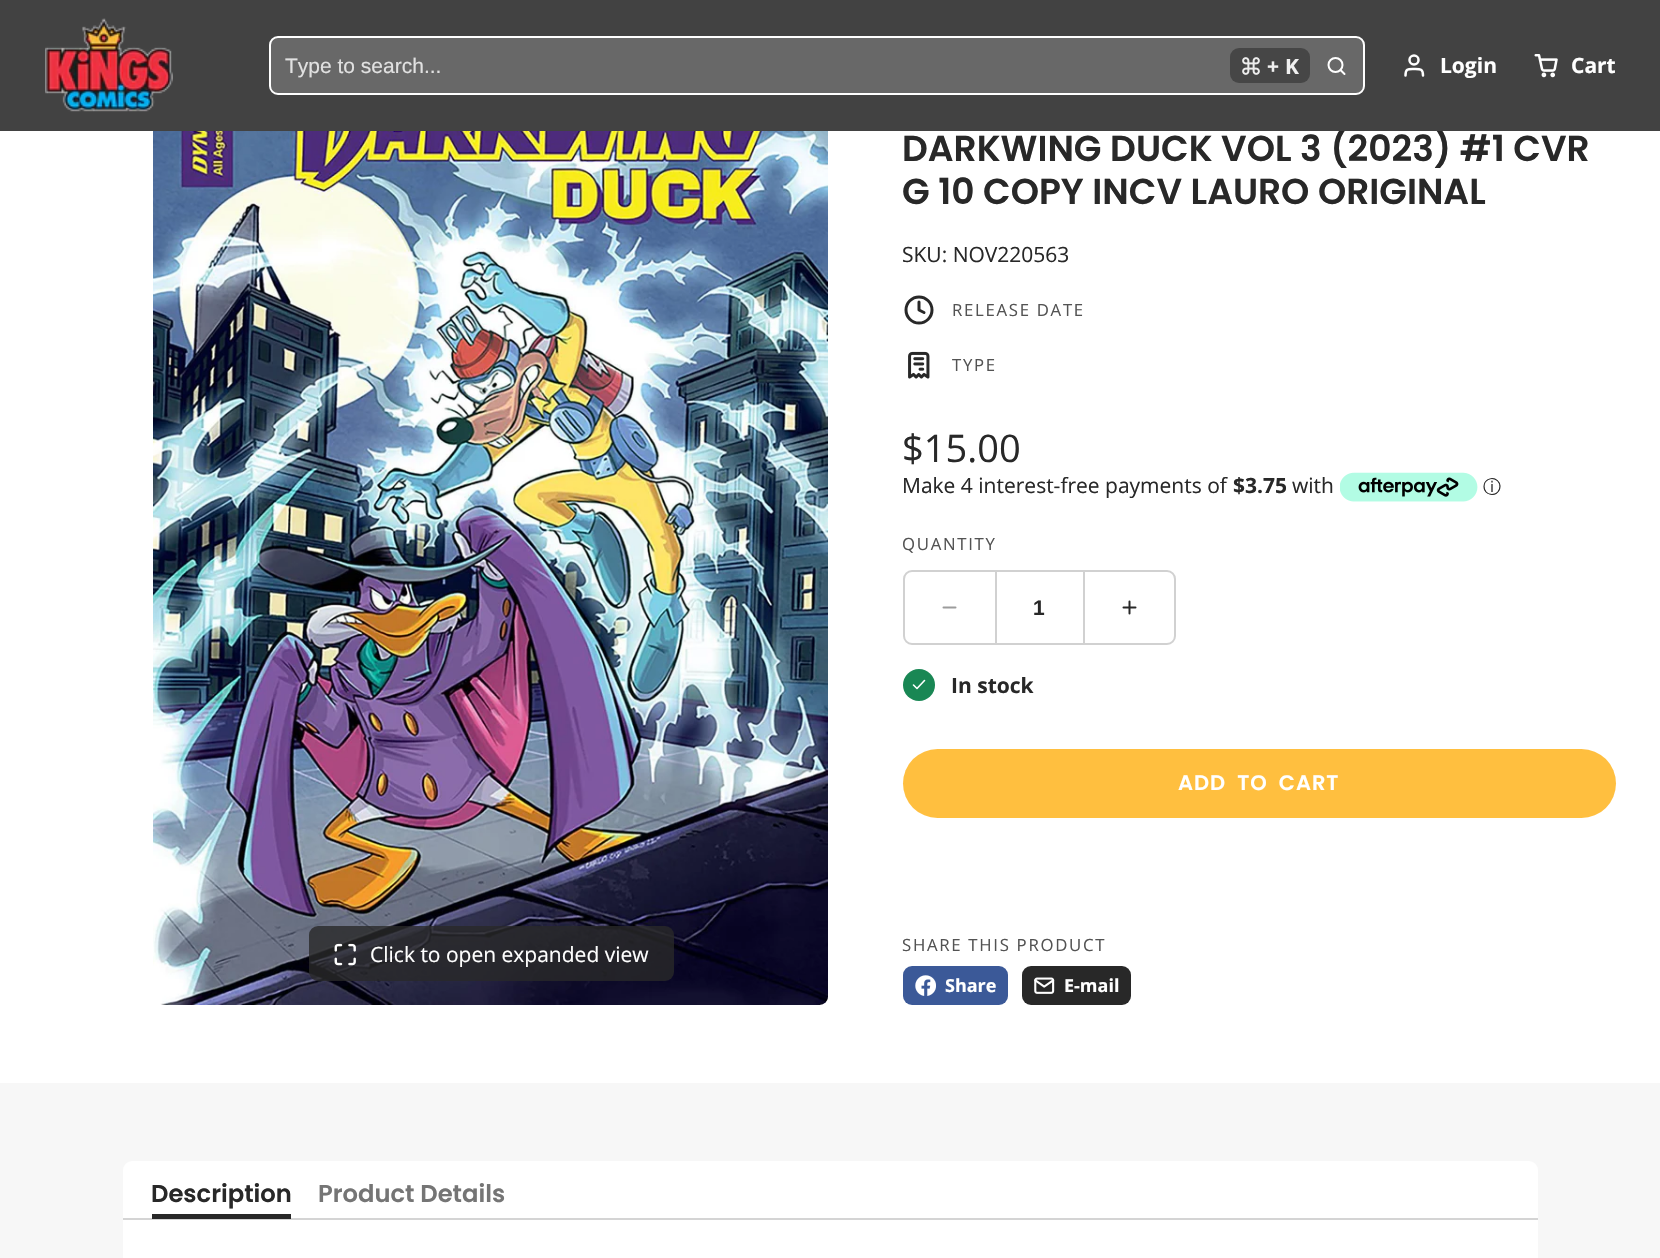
void draw(SkCanvas* c) {
SkPaint p;
p.setAntiAlias(true);
auto F=[&](const char* family, int weight, float size, bool italic = false){SkFontStyle style(weight, SkFontStyle::kNormal_Width,italic ? SkFontStyle::kItalic_Slant : SkFontStyle::kUpright_Slant);SkFont result(fontMgr->matchFamilyStyle(family, style), size);result.setSubpixel(true);return result;};
auto T=[&](const char* s, float x, float y, const SkFont& font){c->drawString(s, x, y, font, p);};
auto L=[&](const char* s, float x, float y, const SkFont& font, const SkPaint& ink, float letter, float word){std::vector<SkGlyphID> glyphs(font.countText(s, strlen(s), SkTextEncoding::kUTF8));std::vector<float> xs(glyphs.size());font.textToGlyphs(s, strlen(s), SkTextEncoding::kUTF8, glyphs);font.getXPos(glyphs, xs, x);float extra = 0;for (size_t i = 0; i < glyphs.size(); i++) {xs[i] += extra;extra += letter + word * (glyphs[i] == font.unicharToGlyph(' '));}c->drawTextBlob(SkTextBlob::MakeFromPosHGlyphs(glyphs, xs, y, font), 0, 0, ink);};
auto R=[&](float x, float y, float w, float h){c->drawRect(SkRect::MakeXYWH(x, y, w, h), p);};
auto Q=[&](float x, float y, float w, float h, float radius){c->drawRoundRect(SkRect::MakeXYWH(x, y, w, h), radius, radius, p);};
auto I=[&](const char* path, float x, float y, float w, float h){auto image = SkImages::DeferredFromEncodedData(SkData::MakeFromFileName(path));c->drawImageRect(image, SkRect::MakeXYWH(x, y, w, h), SkSamplingOptions());};
auto P=[&](const char* data, bool evenOdd = false){SkPath result = *SkParsePath::FromSVGString(data);if (evenOdd) result.setFillType(SkPathFillType::kEvenOdd);return result;};
c->clear(0xfff7f7f7);
p.setColor(0xffffffff);
R(0,131,1660,952);
auto f1 = F("Poppins",600,36);
p.setColor(0xff282828);
T("DARKWING DUCK VOL 3 (2023) #1 CVR",902,161,f1);
p.setColor(0xff424242);
R(0,0,1660,131);
I("1.png",45,18,128,94);
p.setColor(0xff686868);
c->drawRoundRect(SkRect::MakeXYWH(270,37,1094,57),8,8,p);
p.setStroke(true);
p.setStrokeWidth(2);
p.setColor(0xffffffff);
c->drawRoundRect(SkRect::MakeXYWH(270,37,1094,57),8,8,p);
auto f2 = F("Liberation Sans",400,21);
p.setStroke(false);
p.setColor(0xffe1e1e1);
T("Type to search...",285,73,f2);
p.setColor(0xff464646);
Q(1230,48,80,35,9);
I("2.png",1242,57,18,18);
auto f3 = F("Open Sans",700,21);
p.setColor(0xfff0f0f0);
T("+",1267,74,f3);
T("K",1285,74,f3);
p.setStroke(true);
p.setColor(0xffffffff);
c->drawCircle(1335.5,65,7,p);
p.setStrokeCap(SkPaint::kRound_Cap);
p.setStrokeJoin(SkPaint::kRound_Join);
c->drawPath(P("M1344.5 74l-4-4"),p);
p.setStrokeWidth(2.5);
c->drawPath(P("M1423 75.5c0-7-3-6.5-9-6.5c-6 0-8.5-.5-8.5 6.5"),p);
p.setStrokeCap(SkPaint::kButt_Cap);
p.setStrokeJoin(SkPaint::kMiter_Join);
c->drawCircle(1414,60,4.5,p);
p.setStroke(false);
T("Login",1440,73,f3);
I("3.png",1534,54,24,24);
T("Cart",1571,73,f3);
I("4.png",153,131,675,874);
p.setColor(0xcc282828);
Q(309,926,365,55,9);
I("5.png",334,943,22,23);
auto f4 = F("Open Sans",400,21);
p.setColor(0xffffffff);
T("Click to open expanded view",370,962,f4);
p.setColor(0xff282828);
T("G 10 COPY INCV LAURO ORIGINAL",902,204,f1);
T("SKU: NOV220563",902,262,f4);
p.setStroke(true);
p.setStrokeWidth(3);
c->drawCircle(919,310,13,p);
p.setStrokeCap(SkPaint::kRound_Cap);
p.setStrokeJoin(SkPaint::kRound_Join);
c->drawPath(P("M919 302v8l5 2.5"),p);
auto f5 = F("Open Sans",400,16.75);
p.setStroke(false);
p.setColor(0xff535353);
L("RELEASE DATE",952,316,f5,p,1.7,0);
I("6.png",908,351,22,28);
L("TYPE",952,371,f5,p,1.7,0);
auto f6 = F("Open Sans",400,38);
p.setColor(0xff282828);
T("$15.00",902,462,f6);
T("Make 4 interest-free payments of",902,493,f4);
T("$3.75",1233,493,f3);
T("with",1292,493,f4);
I("7.png",1340,472,138,30);
auto f7 = F("WenQuanYi Zen Hei",500,18);
T("ⓘ",1483,493,f7);
p.setColor(0xff535353);
L("QUANTITY",902,550,f5,p,1.7,0);
p.setStroke(true);
p.setStrokeWidth(2);
p.setStrokeCap(SkPaint::kButt_Cap);
p.setStrokeJoin(SkPaint::kMiter_Join);
p.setColor(0xffd1d1d1);
c->drawRoundRect(SkRect::MakeXYWH(904,571,271,73),8,8,p);
p.setStrokeCap(SkPaint::kRound_Cap);
p.setStrokeJoin(SkPaint::kRound_Join);
p.setColor(0xff9c9c9c);
c->drawPath(P("M943.5 607.5h12"),p);
p.setStroke(false);
p.setColor(0xffd1d1d1);
R(1083,572,2,72);
R(995,572,2,72);
auto f8 = F("Liberation Sans",700,21);
p.setColor(0xff282828);
T("1",1033,615,f8);
p.setStroke(true);
c->drawPath(P("M1129.5 601.5v12m-6-6h12"),p);
p.setStroke(false);
p.setColor(0xff198754);
c->drawCircle(919,685,16,p);
p.setStroke(true);
p.setStrokeWidth(1.6);
p.setColor(0xffffffff);
c->drawPath(P("M924.5 680.5l-7.5 8l-3.5-3.5"),p);
p.setStroke(false);
p.setColor(0xff282828);
T("In stock",951,693,f3);
p.setColor(0xffffbf3f);
Q(903,749,713,69,34.5);
auto f9 = F("Poppins",600,21);
p.setColor(0xffffffff);
L("ADD TO CART",1178,790,f9,p,1,5);
p.setColor(0xff535353);
L("SHARE THIS PRODUCT",902,951,f5,p,1.7,0);
p.setColor(0xff3b5998);
Q(903,966,105,39,9);
I("8.png",915,975,21,21);
auto f10 = F("Open Sans",700,18);
p.setColor(0xffffffff);
T("Share",945,992,f10);
p.setColor(0xff282828);
Q(1022,966,109,39,9);
I("9.png",1034,977,21,17);
p.setColor(0xffffffff);
T("E-mail",1064,992,f10);
Q(123,1161,1415,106,9);
p.setColor(0xffd4d4d4);
R(123,1218,1415,2);
p.setColor(0xff282828);
R(152,1214,139,5);
auto f11 = F("Poppins",600,24.25);
T("Description",151,1202,f11);
p.setColor(0xff757575);
T("Product Details",318,1202,f11);
}
